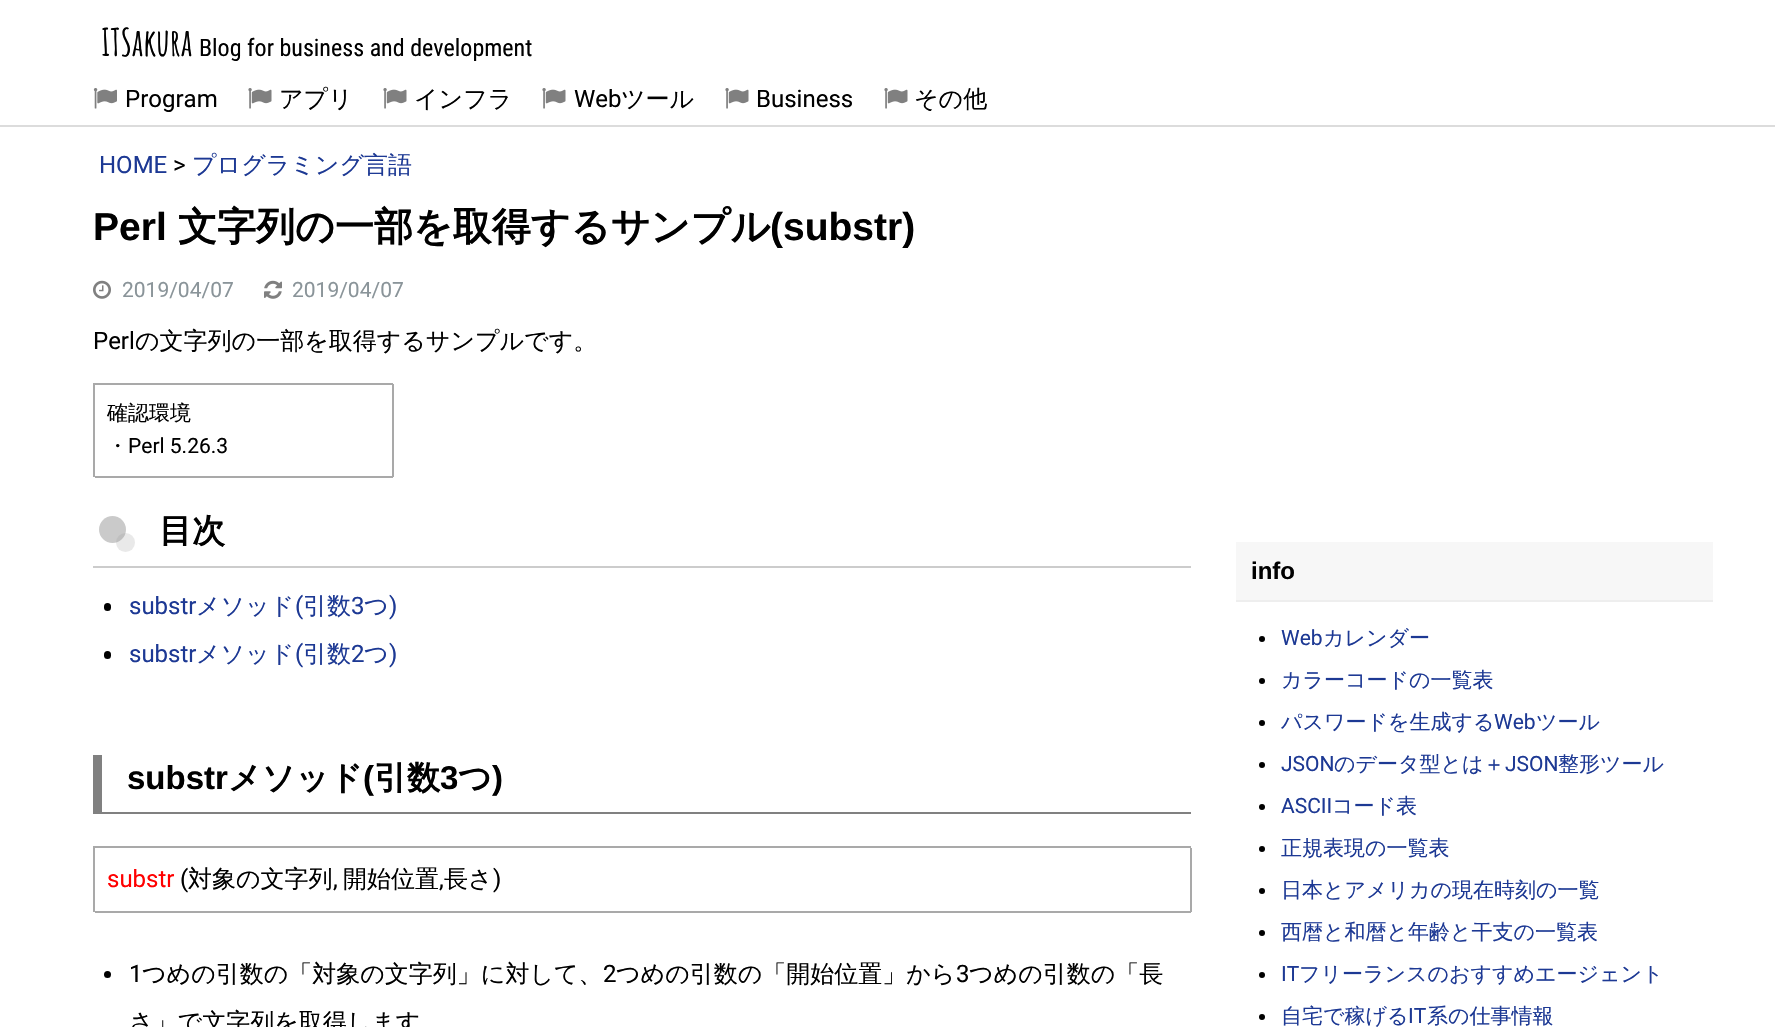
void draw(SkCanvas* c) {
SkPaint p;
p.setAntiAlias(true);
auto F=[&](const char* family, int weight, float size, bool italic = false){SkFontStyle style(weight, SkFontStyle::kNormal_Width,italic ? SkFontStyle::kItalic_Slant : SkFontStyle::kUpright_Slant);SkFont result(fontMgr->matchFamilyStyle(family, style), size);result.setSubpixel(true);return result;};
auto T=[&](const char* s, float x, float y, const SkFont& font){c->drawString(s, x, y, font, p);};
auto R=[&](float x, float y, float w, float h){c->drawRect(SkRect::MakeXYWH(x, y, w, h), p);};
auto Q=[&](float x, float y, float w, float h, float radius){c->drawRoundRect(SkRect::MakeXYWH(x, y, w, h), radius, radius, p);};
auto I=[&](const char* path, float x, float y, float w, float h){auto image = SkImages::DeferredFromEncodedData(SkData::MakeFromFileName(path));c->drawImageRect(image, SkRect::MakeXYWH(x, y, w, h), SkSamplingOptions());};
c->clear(0xffffffff);
p.setColor(0xffdcdcdc);
R(0,125,1775,2);
auto f1 = F("Amatic SC",700,37.5);
p.setColor(0xff000000);
T("ITSakura",101,56,f1);
auto f2 = F("Roboto Condensed",400,24);
T("Blog for business and development",199,56,f2);
I("1.png",93,88,24,21);
auto f3 = F("Roboto",400,24);
T("Program",125,107,f3);
I("2.png",248,88,24,21);
auto f4 = F("WenQuanYi Zen Hei",500,24);
T("アプリ",279,107,f4);
I("2.png",383,88,24,21);
T("インフラ",414,107,f4);
I("2.png",542,88,24,21);
T("Web",574,107,f3);
T("ツール",621,107,f4);
I("2.png",725,88,24,21);
T("Business",756,107,f3);
I("2.png",884,88,24,21);
T("その他",914,107,f4);
p.setColor(0xff1d3994);
T("HOME",99,173,f3);
p.setColor(0xff000000);
T(">",173,173,f3);
p.setColor(0xff1d3994);
T("プログラミング言語",192,173,f4);
auto f5 = F("Liberation Sans",700,39);
p.setColor(0xff000000);
T("Perl",93,240,f5);
auto f6 = F("WenQuanYi Zen Hei",700,39);
T("文字列の一部を取得するサンプル",178,240,f6);
T("(substr)",770,240,f5);
I("3.png",93,280,18,19);
auto f7 = F("Roboto",400,21);
p.setColor(0xff8a9499);
T("2019/04/07",122,297,f7);
I("4.png",264,280,18,19);
T("2019/04/07",292,297,f7);
p.setColor(0xff000000);
T("Perl",93,349,f3);
T("の文字列の一部を取得するサンプルです。",135,349,f4);
p.setColor(0xffa9a9a9);
R(93,383,300,2);
R(93,383,2,94);
R(392,384,2,93);
R(95,476,298,2);
auto f8 = F("WenQuanYi Zen Hei",500,21);
p.setColor(0xff000000);
T("確認環境",107,420,f8);
T("・",107,453,f8);
T("Perl 5.26.3",128,453,f7);
p.setColor(0xffcccccc);
R(93,566,1098,2);
p.setColor(0xffe9e9e9);
c->drawCircle(125.5,542.5,9.5,p);
p.setColor(0x80969696);
c->drawCircle(112.5,529.5,13.5,p);
auto f9 = F("WenQuanYi Zen Hei",700,33);
p.setColor(0xff000000);
T("目次",159,542,f9);
Q(104,603,7,8,3.5);
p.setColor(0xff1d3994);
T("substr",129,614,f3);
T("メソッド",196,614,f4);
T("(",295,614,f3);
T("引数",303,614,f4);
T("3",351,614,f3);
T("つ",364,614,f4);
T(")",389,614,f3);
p.setColor(0xff000000);
Q(104,651,7,8,3.5);
p.setColor(0xff1d3994);
T("substr",129,662,f3);
T("メソッド",196,662,f4);
T("(",295,662,f3);
T("引数",303,662,f4);
T("2",351,662,f3);
T("つ",364,662,f4);
T(")",389,662,f3);
p.setColor(0xff808080);
R(93,812,1098,2);
R(93,755,9,57);
auto f10 = F("Liberation Sans",700,33);
p.setColor(0xff000000);
T("substr",127,789,f10);
T("メソッド",228,789,f9);
T("(",363,789,f10);
T("引数",374,789,f9);
T("3",440,789,f10);
T("つ",458,789,f9);
T(")",492,789,f10);
p.setColor(0xffa9a9a9);
R(93,846,1098,2);
R(93,846,2,66);
R(1190,848,2,64);
R(95,911,1096,2);
p.setColor(0xffff0000);
T("substr",107,887,f3);
p.setColor(0xff000000);
T("(",180,887,f3);
T("対象の文字列",188,887,f4);
T(",",333,887,f3);
T("開始位置",343,887,f4);
T(",",439,887,f3);
T("長さ",444,887,f4);
T(")",493,887,f3);
c->drawCircle(107.5,974.5,3.5,p);
T("1",129,982,f3);
T("つめの引数の「対象の文字列」に対して、",142,982,f4);
T("2",603,982,f3);
T("つめの引数の「開始位置」から",616,982,f4);
T("3",956,982,f3);
T("つめの引数の「長",969,982,f4);
T("さ」で文字列を取得します",129,1030,f4);
p.setColor(0xfff7f7f7);
R(1236,542,477,58);
p.setColor(0xffeeeeee);
R(1236,600,477,2);
auto f11 = F("Liberation Sans",700,24);
p.setColor(0xff000000);
T("info",1251,579,f11);
c->drawCircle(1262,639,3,p);
p.setColor(0xff1d3994);
T("Web",1281,645,f7);
T("カレンダー",1323,645,f8);
p.setColor(0xff000000);
c->drawCircle(1262,681,3,p);
p.setColor(0xff1d3994);
T("カラーコードの一覧表",1281,687,f8);
p.setColor(0xff000000);
c->drawCircle(1262,723,3,p);
p.setColor(0xff1d3994);
T("パスワードを生成する",1281,729,f8);
T("Web",1494,729,f7);
T("ツール",1536,729,f8);
p.setColor(0xff000000);
c->drawCircle(1262,765,3,p);
p.setColor(0xff1d3994);
T("JSON",1281,771,f7);
T("のデータ型とは＋",1334,771,f8);
T("JSON",1505,771,f7);
T("整形ツール",1558,771,f8);
p.setColor(0xff000000);
c->drawCircle(1262,807,3,p);
p.setColor(0xff1d3994);
T("ASCII",1281,813,f7);
T("コード表",1332,813,f8);
p.setColor(0xff000000);
c->drawCircle(1262,849,3,p);
p.setColor(0xff1d3994);
T("正規表現の一覧表",1281,855,f8);
p.setColor(0xff000000);
c->drawCircle(1262,891,3,p);
p.setColor(0xff1d3994);
T("日本とアメリカの現在時刻の一覧",1281,897,f8);
p.setColor(0xff000000);
c->drawCircle(1262,933,3,p);
p.setColor(0xff1d3994);
T("西暦と和暦と年齢と干支の一覧表",1281,939,f8);
p.setColor(0xff000000);
c->drawCircle(1262,975,3,p);
p.setColor(0xff1d3994);
T("IT",1281,981,f7);
T("フリーランスのおすすめエージェント",1299,981,f8);
p.setColor(0xff000000);
c->drawCircle(1262,1017,3,p);
p.setColor(0xff1d3994);
T("自宅で稼げる",1281,1023,f8);
T("IT",1408,1023,f7);
T("系の仕事情報",1427,1023,f8);
}
